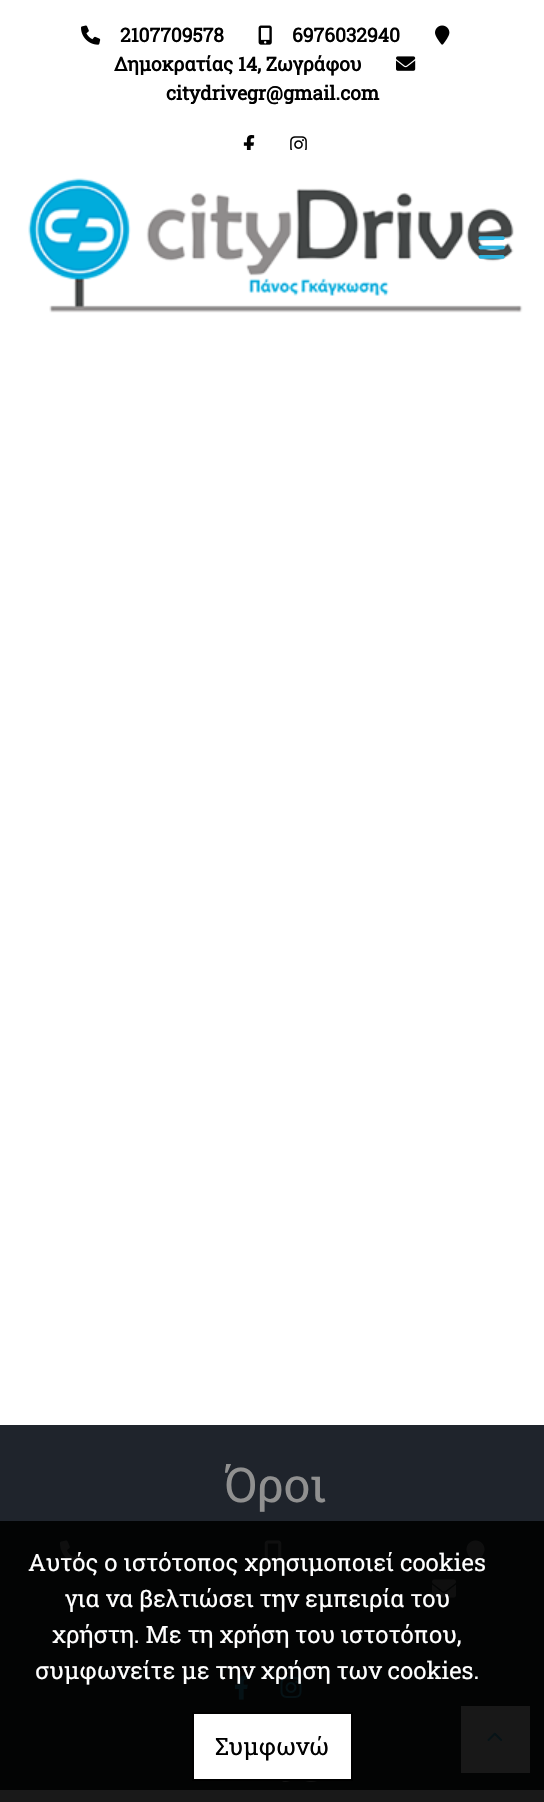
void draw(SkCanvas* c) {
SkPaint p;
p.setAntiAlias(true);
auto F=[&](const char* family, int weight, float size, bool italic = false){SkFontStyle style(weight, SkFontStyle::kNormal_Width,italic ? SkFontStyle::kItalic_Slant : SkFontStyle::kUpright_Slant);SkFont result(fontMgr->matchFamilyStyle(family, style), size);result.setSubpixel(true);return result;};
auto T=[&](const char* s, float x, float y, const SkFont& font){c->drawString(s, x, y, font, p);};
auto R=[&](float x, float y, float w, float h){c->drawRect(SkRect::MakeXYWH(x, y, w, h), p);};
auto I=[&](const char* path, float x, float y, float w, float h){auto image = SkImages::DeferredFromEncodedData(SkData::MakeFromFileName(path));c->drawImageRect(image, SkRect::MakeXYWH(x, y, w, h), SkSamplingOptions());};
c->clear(0xffffffff);
p.setColor(0xff191919);
R(0,1790,544,12);
I("1.png",81,25,20,20);
auto f1 = F("Roboto Slab",700,19.25);
p.setColor(0xff000000);
T("2107709578",120,42,f1);
I("2.png",258,25,14,20);
T("6976032940",292,42,f1);
I("3.png",435,25,15,20);
T("Δημοκρατίας 14, Ζωγράφου",114,71,f1);
I("4.png",396,56,20,15);
T("citydrivegr@gmail.com",166,100,f1);
I("5.png",243,135,12,15);
I("6.png",290,136,17,14);
I("7.png",28,178,495,135);
I("8.png",478,236,27,23);
p.setColor(0xff1f242c);
R(0,1425,544,96);
p.setColor(0xff030404);
R(0,1521,544,269);
auto f2 = F("Roboto Slab",400,48);
p.setColor(0xff909090);
T("Όροι",225,1502,f2);
I("9.png",60,1540,24,25);
I("10.png",264,1540,18,25);
I("11.png",466,1540,19,25);
I("12.png",432,1579,24,19);
I("13.png",235,1675,13,25);
I("14.png",280,1677,22,21);
I("15.png",282,1781,35,1);
auto f3 = F("Roboto Slab",400,24);
p.setColor(0xffffffff);
T("Αυτός ο ιστότοπος χρησιμοποιεί cookies",28,1571,f3);
T("για να βελτιώσει την εμπειρία του",65,1607,f3);
T("χρήστη. Με τη χρήση του ιστοτόπου,",52,1643,f3);
T("συμφωνείτε με την χρήση των cookies.",35,1679,f3);
c->drawRect(SkRect::MakeXYWH(193,1713,159,67),p);
p.setStroke(true);
p.setStrokeWidth(2);
p.setColor(0xff000000);
c->drawRect(SkRect::MakeXYWH(193,1713,159,67),p);
p.setStroke(false);
T("Συμφωνώ",215,1755,f3);
p.setColor(0xff181818);
R(461,1706,69,67);
I("16.png",487,1732,16,9);
}
